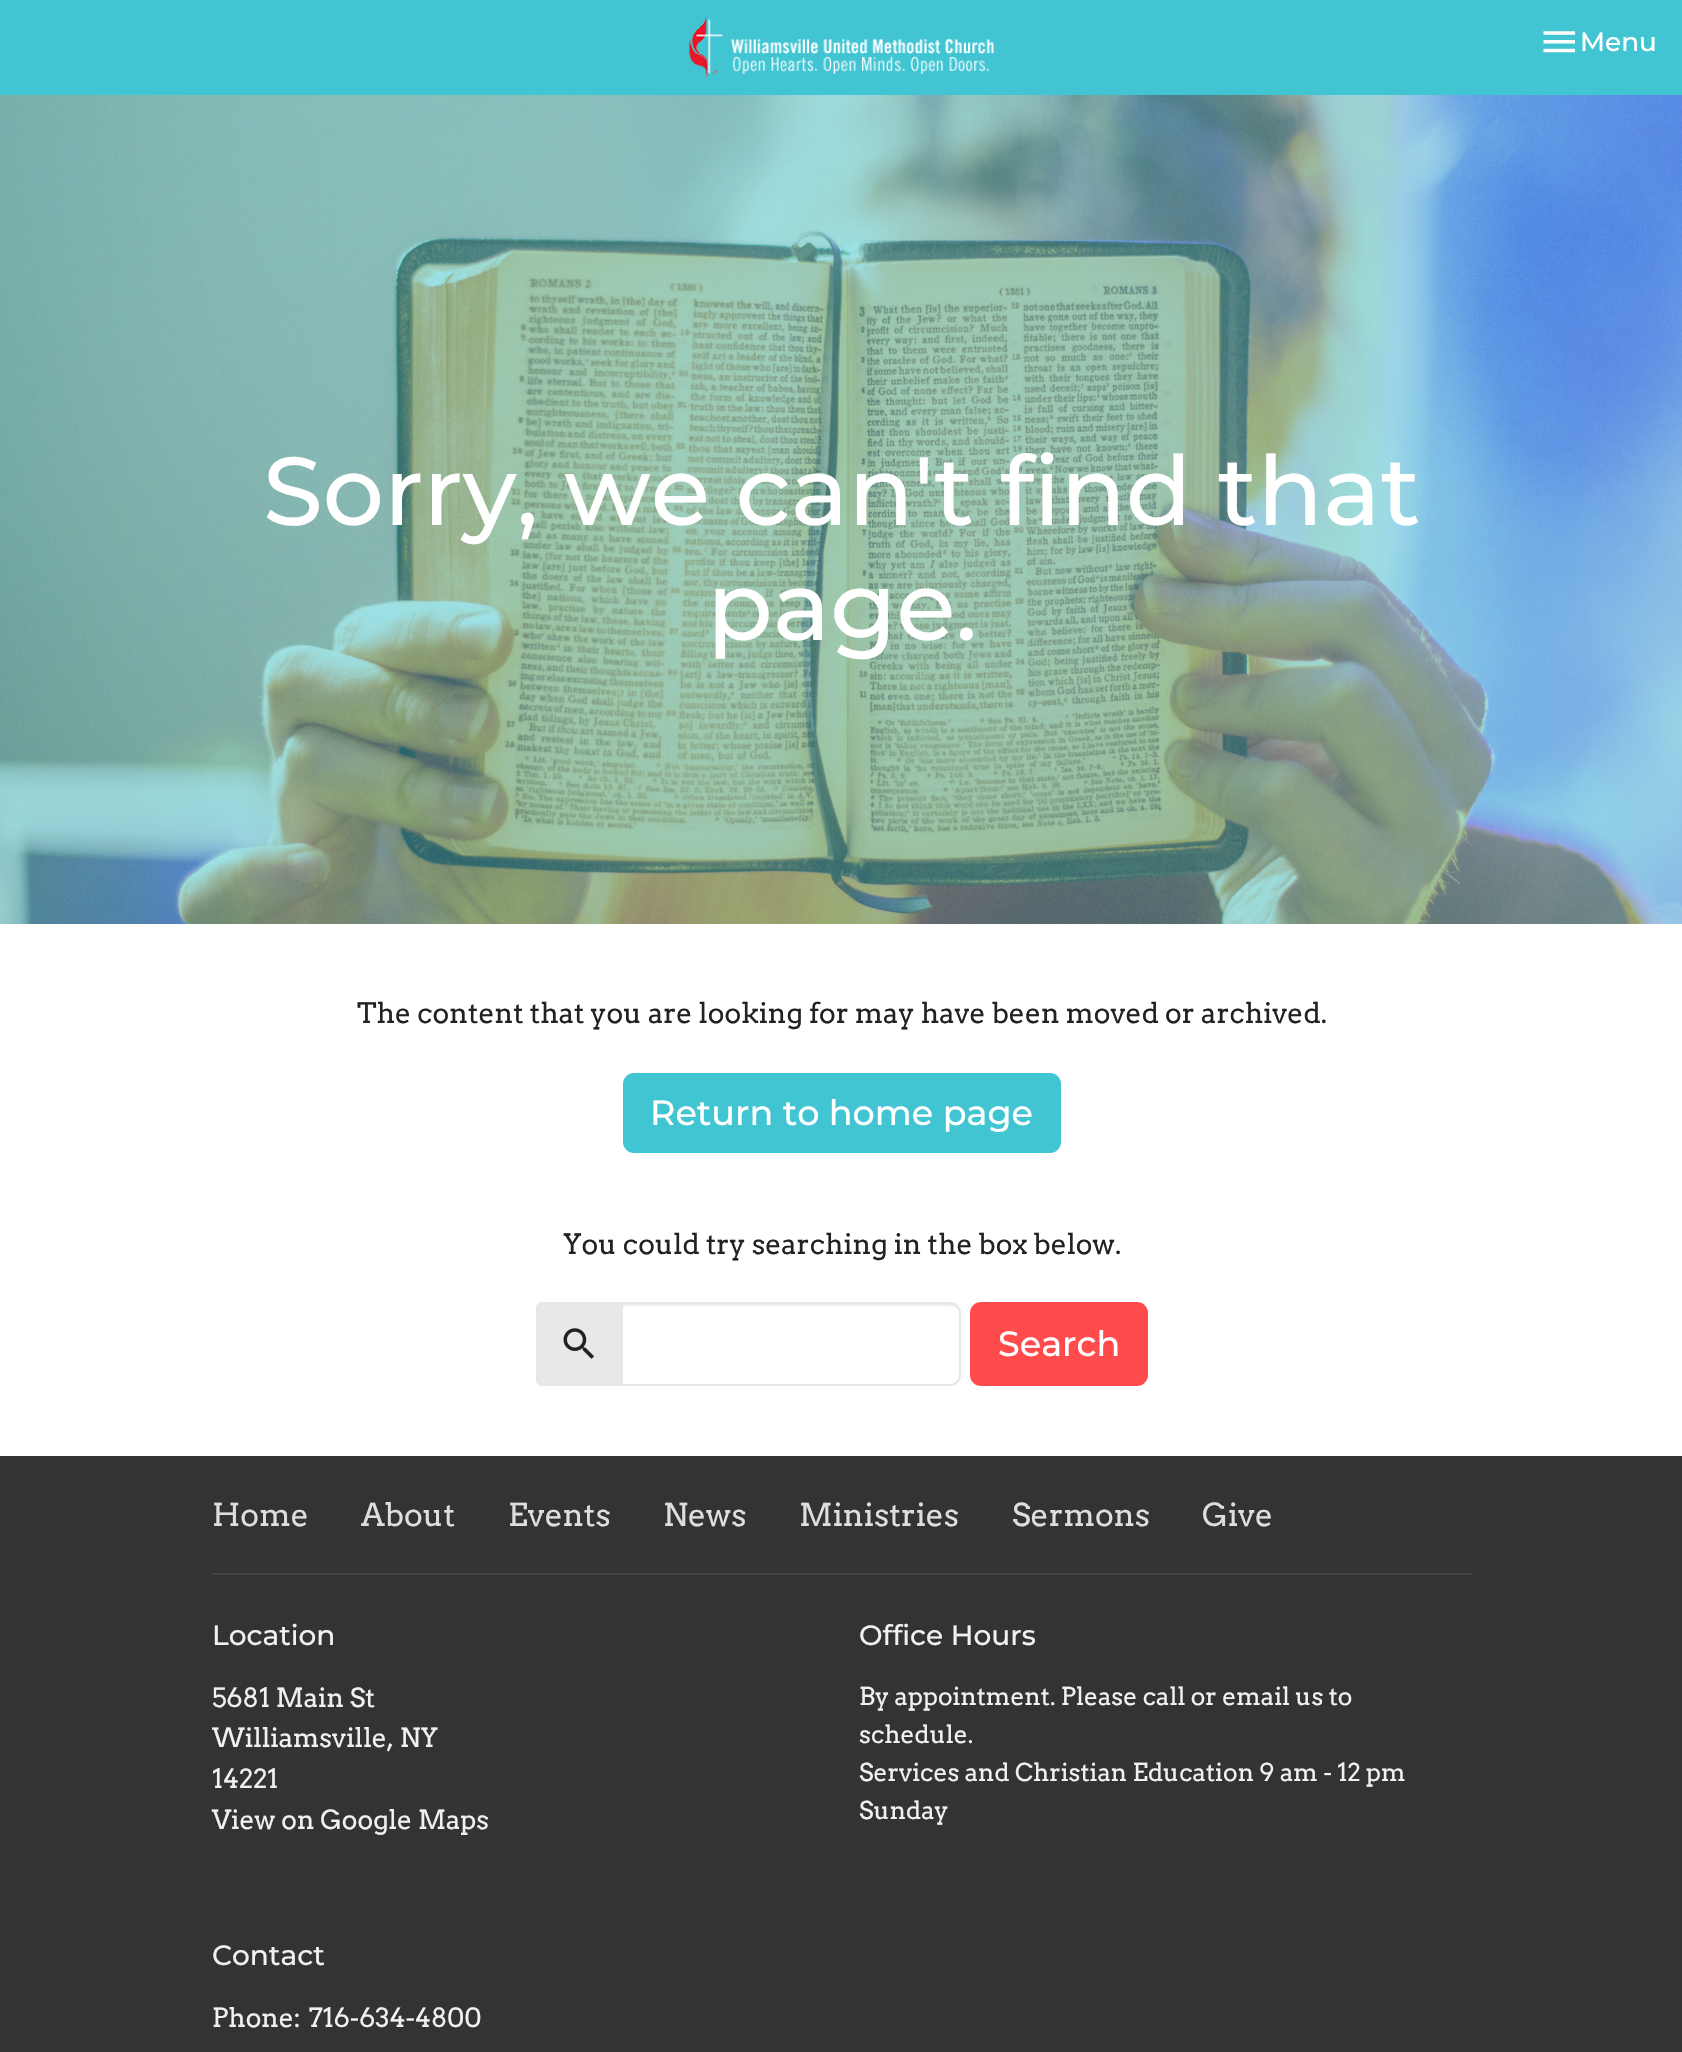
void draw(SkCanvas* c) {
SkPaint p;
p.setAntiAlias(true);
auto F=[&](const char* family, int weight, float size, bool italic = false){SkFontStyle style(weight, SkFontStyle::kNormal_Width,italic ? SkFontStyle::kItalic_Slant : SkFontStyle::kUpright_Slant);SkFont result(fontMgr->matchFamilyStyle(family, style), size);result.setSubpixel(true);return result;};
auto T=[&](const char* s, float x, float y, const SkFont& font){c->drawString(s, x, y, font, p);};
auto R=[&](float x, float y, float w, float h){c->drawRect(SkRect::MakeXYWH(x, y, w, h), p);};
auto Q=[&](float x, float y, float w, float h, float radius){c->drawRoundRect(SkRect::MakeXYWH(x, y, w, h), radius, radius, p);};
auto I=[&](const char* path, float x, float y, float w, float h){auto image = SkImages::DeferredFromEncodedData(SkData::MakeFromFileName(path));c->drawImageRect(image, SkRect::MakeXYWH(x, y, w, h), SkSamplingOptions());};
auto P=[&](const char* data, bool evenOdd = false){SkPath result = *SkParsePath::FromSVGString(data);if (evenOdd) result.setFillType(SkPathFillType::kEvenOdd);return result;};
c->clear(0xffffffff);
p.setColor(0xff41c5d3);
R(0,0,1682,95);
I("1.png",689,17,305,60);
I("2.png",1543,31,32,22);
auto f1 = F("Montserrat",500,26.25);
p.setColor(0xffffffff);
T("Menu",1580,51,f1);
I("3.png",0,95,1682,829);
auto f2 = F("Montserrat",500,96.25);
T("Sorry, we can't find that",263,525,f2);
T("page.",707,640,f2);
auto f3 = F("Arvo",400,28);
p.setColor(0xff222222);
T("The content that you are looking for may have been moved or archived.",357,1023,f3);
p.setColor(0xff41c5d3);
Q(623,1073,438,80,11);
auto f4 = F("Montserrat",500,35);
p.setColor(0xffffffff);
T("Return to home page",650,1125,f4);
p.setColor(0xff222222);
T("You could try searching in the box below.",563,1254,f3);
p.setColor(0xffe8e8e8);
c->drawPath(P("M543 1302h78v84h-78c-4 0-7-3-7-7v-70c0-4 3-7 7-7z"),p);
p.setColor(0xffe6e6e6);
c->drawPath(P("M542 1302h79v84h-79c-3 0-6-3-6-7v-70c0-4 3-7 6-7zm0 2h79v80h-79c-2 0-5-2-5-5v-70c0-3 3-5 5-5z",true),p);
I("4.png",563,1328,31,31);
p.setColor(0xffececec);
c->drawPath(P("M623 1306h327c5 0 9 3 9 8c0-5-3-10-9-10h-327z"),p);
p.setStroke(true);
p.setStrokeWidth(2);
p.setColor(0xffe6e6e6);
c->drawPath(P("M622 1303h328c5.5 0 10 4.5 10 10v62c0 5.5-4.5 10-10 10h-328z"),p);
p.setStroke(false);
p.setColor(0xffff4b4b);
Q(970,1302,178,84,11);
p.setColor(0xffffffff);
T("Search",998,1356,f4);
p.setColor(0xff333333);
R(0,1456,1682,596);
auto f5 = F("Arvo",400,31.5);
p.setColor(0xffdedede);
T("Home",212,1526,f5);
T("About",361,1526,f5);
T("Events",508,1526,f5);
T("News",663,1526,f5);
T("Ministries",799,1526,f5);
T("Sermons",1012,1526,f5);
T("Give",1202,1526,f5);
p.setColor(0xff424242);
R(212,1573,1260,2);
auto f6 = F("Montserrat",500,28);
p.setColor(0xfff1f1f1);
T("Location",212,1645,f6);
auto f7 = F("Arvo",400,26.25);
T("5681 Main St",212,1707,f7);
T("Williamsville, NY",212,1747,f7);
T("14221",212,1788,f7);
T("View on Google Maps",212,1829,f7);
T("Office Hours",859,1645,f6);
auto f8 = F("Arvo",400,24.5);
T("By appointment. Please call or email us to",859,1705,f8);
T("schedule.",859,1743,f8);
T("Services and Christian Education 9 am - 12 pm",859,1781,f8);
T("Sunday",859,1819,f8);
T("Contact",212,1965,f6);
T("Phone:",212,2027,f7);
T("716-634-4800",309,2027,f7);
}
